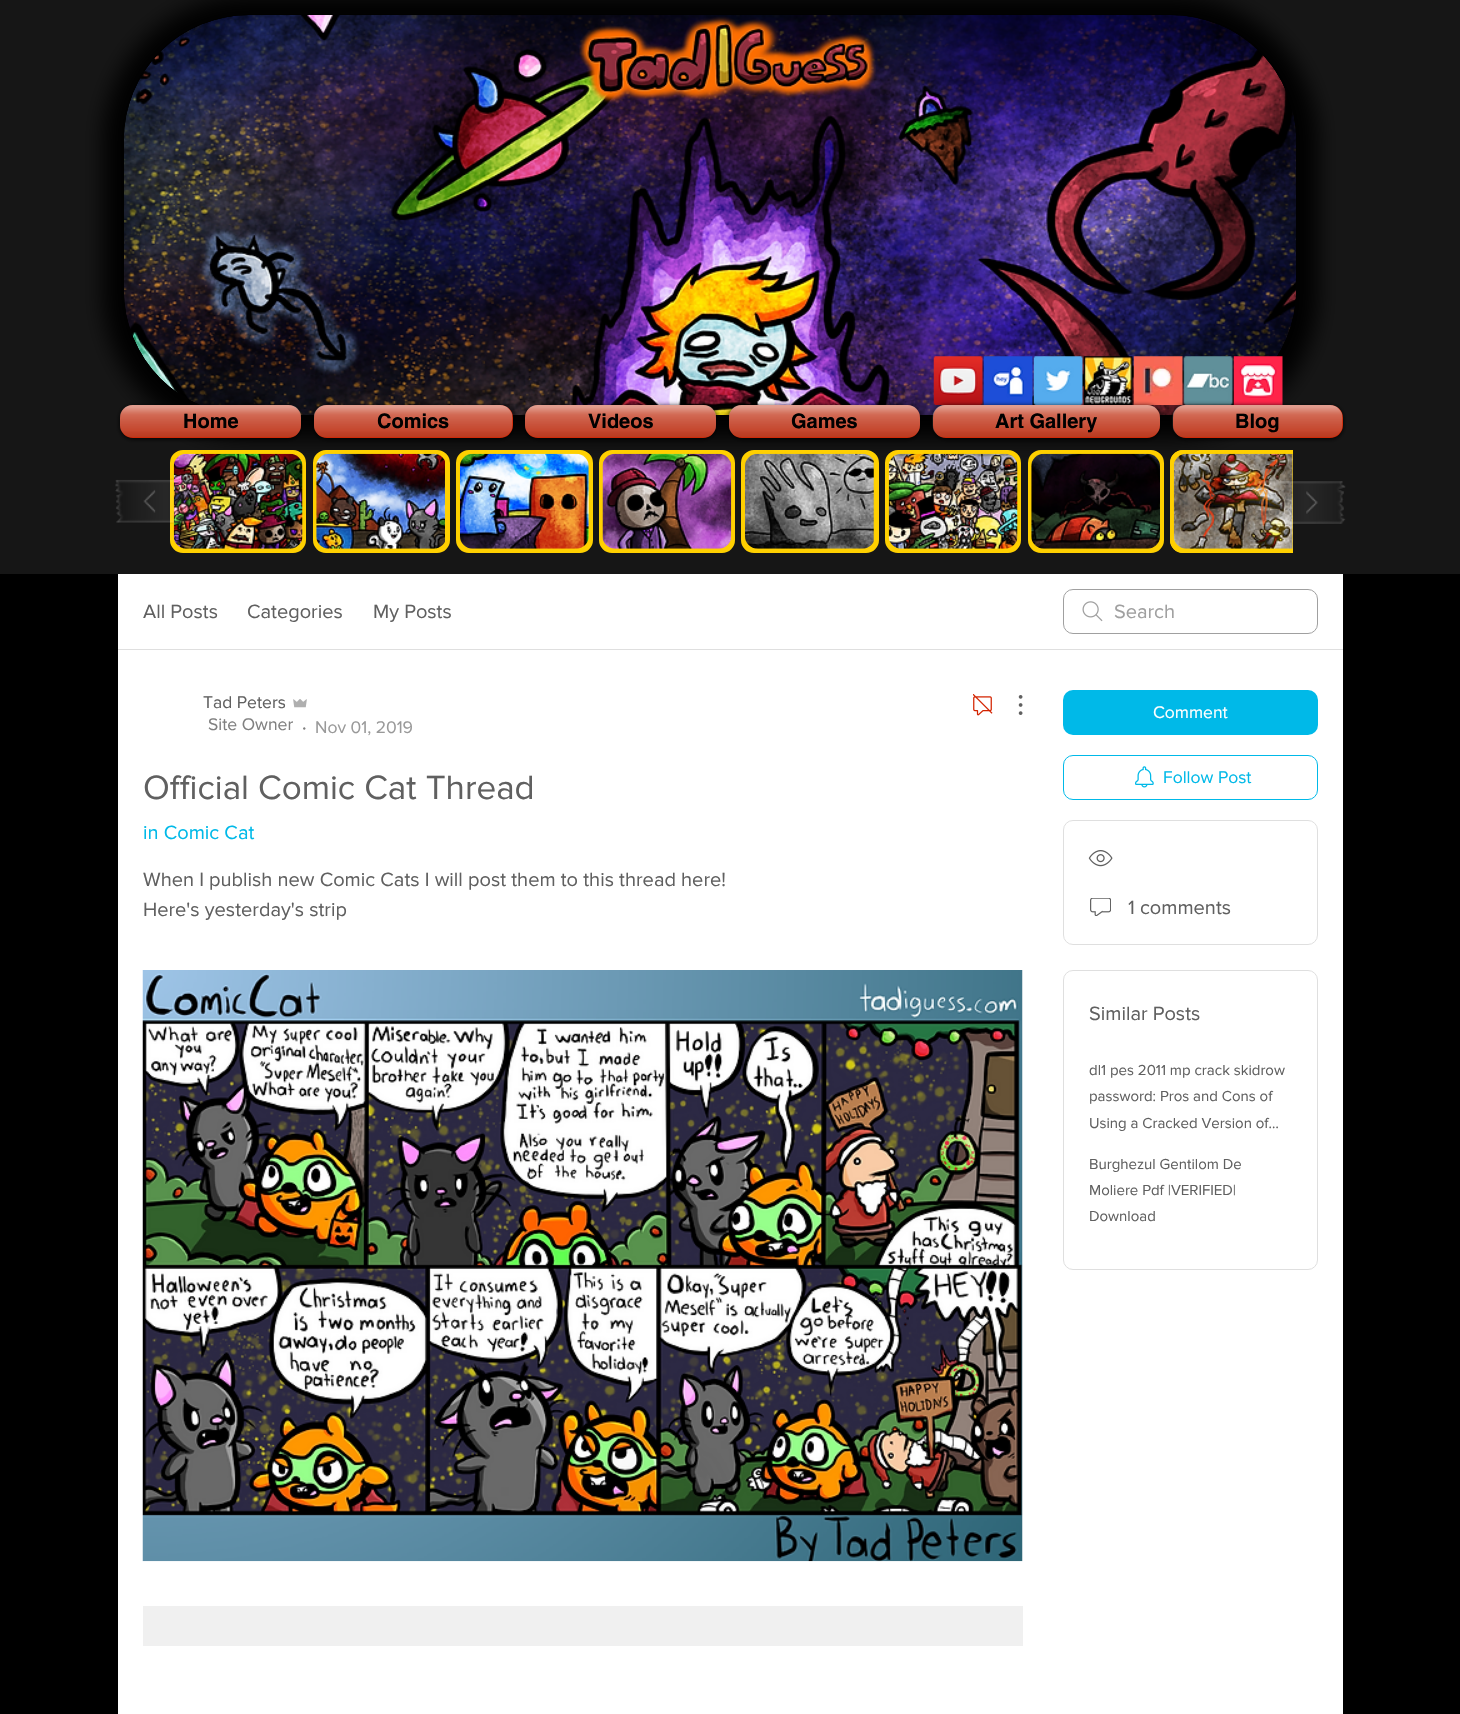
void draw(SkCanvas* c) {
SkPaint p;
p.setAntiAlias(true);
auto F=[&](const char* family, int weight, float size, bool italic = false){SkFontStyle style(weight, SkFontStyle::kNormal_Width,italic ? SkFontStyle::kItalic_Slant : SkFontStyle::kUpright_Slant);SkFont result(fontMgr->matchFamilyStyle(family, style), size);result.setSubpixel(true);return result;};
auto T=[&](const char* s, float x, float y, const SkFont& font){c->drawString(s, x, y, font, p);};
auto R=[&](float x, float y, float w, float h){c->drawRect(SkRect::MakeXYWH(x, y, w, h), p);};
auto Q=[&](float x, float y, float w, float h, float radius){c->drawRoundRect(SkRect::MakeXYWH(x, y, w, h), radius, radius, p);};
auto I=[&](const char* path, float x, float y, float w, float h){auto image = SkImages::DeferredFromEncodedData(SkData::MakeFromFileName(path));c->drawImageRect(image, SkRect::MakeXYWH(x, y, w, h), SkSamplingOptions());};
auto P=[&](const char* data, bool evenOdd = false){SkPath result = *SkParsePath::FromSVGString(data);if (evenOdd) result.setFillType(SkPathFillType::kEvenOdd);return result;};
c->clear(0xff000000);
p.setColor(0xff161616);
R(0,0,1460,574);
p.setColor(0xff000000);
p.setMaskFilter(SkMaskFilter::MakeBlur(kNormal_SkBlurStyle, 11));
c->drawRoundRect(SkRect::MakeXYWH(103,-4,1215,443),146,146,p);
p.setMaskFilter(nullptr);
I("1.png",124,15,1172,400);
I("2.png",579,16,297,88);
I("3.png",933,356,50,49);
I("4.png",983,356,50,49);
I("5.png",1033,356,50,49);
I("6.png",1083,356,50,49);
I("7.png",1133,356,50,49);
I("8.png",1183,356,50,49);
I("9.png",1233,356,50,49);
p.setMaskFilter(SkMaskFilter::MakeBlur(kNormal_SkBlurStyle, 2.5));
c->drawRoundRect(SkRect::MakeXYWH(120,406,181,33),13,13,p);
p.setMaskFilter(nullptr);
p.setColor(0xffd32300);
Q(120,405,181,33,13);
I("10.png",120,405,181,33);
I("11.png",120,405,181,33);
auto f1 = F("helvetica",700,20);
p.setColor(0xff000000);
T("Home",183,428,f1);
p.setMaskFilter(SkMaskFilter::MakeBlur(kNormal_SkBlurStyle, 2.5));
c->drawRoundRect(SkRect::MakeXYWH(314,406,199,33),13,13,p);
p.setMaskFilter(nullptr);
p.setColor(0xffd32300);
Q(314,405,199,33,13);
I("12.png",314,405,199,33);
I("13.png",314,405,199,33);
p.setColor(0xff000000);
T("Comics",377,428,f1);
p.setMaskFilter(SkMaskFilter::MakeBlur(kNormal_SkBlurStyle, 2.5));
c->drawRoundRect(SkRect::MakeXYWH(525,406,191,33),13,13,p);
p.setMaskFilter(nullptr);
p.setColor(0xffd32300);
Q(525,405,191,33,13);
I("14.png",525,405,191,33);
I("15.png",525,405,191,33);
p.setColor(0xff000000);
T("Videos",588,428,f1);
p.setMaskFilter(SkMaskFilter::MakeBlur(kNormal_SkBlurStyle, 2.5));
c->drawRoundRect(SkRect::MakeXYWH(729,406,191,33),13,13,p);
p.setMaskFilter(nullptr);
p.setColor(0xffd32300);
Q(729,405,191,33,13);
I("16.png",729,405,191,33);
I("17.png",729,405,191,33);
p.setColor(0xff000000);
T("Games",791,428,f1);
p.setMaskFilter(SkMaskFilter::MakeBlur(kNormal_SkBlurStyle, 2.5));
c->drawRoundRect(SkRect::MakeXYWH(933,406,227,33),13,13,p);
p.setMaskFilter(nullptr);
p.setColor(0xffd32300);
Q(933,405,227,33,13);
I("18.png",932,405,228,33);
I("19.png",933,405,227,33);
p.setColor(0xff000000);
T("Art Gallery",995,428,f1);
p.setMaskFilter(SkMaskFilter::MakeBlur(kNormal_SkBlurStyle, 2.5));
c->drawRoundRect(SkRect::MakeXYWH(1173,406,170,33),13,13,p);
p.setMaskFilter(nullptr);
p.setColor(0xffd32300);
Q(1173,405,170,33,13);
I("20.png",1172,405,171,33);
I("21.png",1173,405,170,33);
p.setColor(0xff000000);
T("Blog",1235,428,f1);
p.setColor(0xffffd000);
c->drawRoundRect(SkRect::MakeXYWH(172,452,132,99),11,11,p);
p.setStroke(true);
p.setStrokeWidth(4);
c->drawRoundRect(SkRect::MakeXYWH(172,452,132,99),11,11,p);
I("23.png",173,453,130,96);
I("22.png",115,478,92,46);
p.setStroke(false);
c->drawRoundRect(SkRect::MakeXYWH(315,452,133,99),11,11,p);
p.setStroke(true);
c->drawRoundRect(SkRect::MakeXYWH(315,452,133,99),11,11,p);
I("24.png",316,453,129,96);
p.setStroke(false);
c->drawRoundRect(SkRect::MakeXYWH(458,452,133,99),11,11,p);
p.setStroke(true);
c->drawRoundRect(SkRect::MakeXYWH(458,452,133,99),11,11,p);
I("25.png",460,453,129,96);
p.setStroke(false);
c->drawRoundRect(SkRect::MakeXYWH(601,452,132,99),11,11,p);
p.setStroke(true);
c->drawRoundRect(SkRect::MakeXYWH(601,452,132,99),11,11,p);
I("26.png",602,453,130,96);
p.setStroke(false);
c->drawRoundRect(SkRect::MakeXYWH(743,452,134,99),11,11,p);
p.setStroke(true);
c->drawRoundRect(SkRect::MakeXYWH(743,452,134,99),11,11,p);
I("27.png",745,453,129,96);
p.setStroke(false);
c->drawRoundRect(SkRect::MakeXYWH(887,452,132,99),11,11,p);
p.setStroke(true);
c->drawRoundRect(SkRect::MakeXYWH(887,452,132,99),11,11,p);
I("28.png",888,453,130,96);
p.setStroke(false);
c->drawRoundRect(SkRect::MakeXYWH(1030,452,132,99),11,11,p);
p.setStroke(true);
c->drawRoundRect(SkRect::MakeXYWH(1030,452,132,99),11,11,p);
I("29.png",1031,453,129,96);
p.setStroke(false);
c->drawPath(P("M1183 450h110v103h-110c-7 0-13-6-13-13v-77c0-7 6-13 13-13z"),p);
c->save();
c->clipRect(SkRect::MakeXYWH(170,450,1123,103));
p.setStroke(true);
c->drawRoundRect(SkRect::MakeXYWH(1172,452,134,99),11,11,p);
c->restore();
I("30.png",1173,453,120,96);
I("31.png",1257,479,89,47);
p.setStroke(false);
p.setColor(0xffffffff);
R(118,574,1225,1140);
p.setColor(0xffdfdfdf);
R(118,649,1225,1);
auto f2 = F("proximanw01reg",400,20);
p.setColor(0xff606060);
T("All Posts",143,618,f2);
T("Categories",247,618,f2);
T("My Posts",373,618,f2);
I("32.png",1082,601,21,21);
p.setStroke(true);
p.setStrokeWidth(1);
p.setColor(0xffa0a0a0);
c->drawRoundRect(SkRect::MakeXYWH(1063.5,589.5,254,44),9.5,9.5,p);
p.setStroke(false);
T("Search",1114,618,f2);
auto f3 = F("proximanw01reg",400,17.5);
p.setColor(0xff606060);
T("Tad Peters",203,708,f3);
I("33.png",293,699,14,9);
p.setColor(0xff808080);
T("Site Owner",208,730,f3);
auto f4 = F("proximanw01reg",700,17.5);
T("·",302,733,f4);
p.setColor(0xff999999);
T("Nov 01, 2019",315,733,f3);
I("34.png",973,694,20,22);
I("35.png",1018,695,5,20);
auto f5 = F("proximanw01reg",400,35);
p.setColor(0xff606060);
T("Official Comic Cat Thread",143,799,f5);
p.setColor(0xff00b9e8);
T("in Comic Cat",143,839,f2);
p.setColor(0xff606060);
T("When I publish new Comic Cats I will post them to this thread here!",143,886,f2);
T("Here's yesterday's strip",143,916,f2);
I("36.png",142,970,881,592);
p.setColor(0xfff0f0f0);
R(143,1606,880,40);
p.setColor(0xff00b9e8);
Q(1063,690,255,45,10);
p.setColor(0xffffffff);
T("Comment",1153,718,f3);
p.setStroke(true);
p.setColor(0xff00b9e8);
c->drawRoundRect(SkRect::MakeXYWH(1063.5,755.5,254,44),9.5,9.5,p);
I("37.png",1135,766,19,22);
p.setStroke(false);
T("Follow Post",1163,783,f3);
p.setStroke(true);
p.setColor(0xffdfdfdf);
c->drawRoundRect(SkRect::MakeXYWH(1063.5,820.5,254,124),9.5,9.5,p);
I("38.png",1088,850,25,17);
I("39.png",1090,898,21,18);
p.setStroke(false);
p.setColor(0xff606060);
T("1 comments",1128,914,f2);
p.setStroke(true);
p.setColor(0xffdfdfdf);
c->drawRoundRect(SkRect::MakeXYWH(1063.5,970.5,254,299),9.5,9.5,p);
p.setStroke(false);
p.setColor(0xff606060);
T("Similar Posts",1089,1020,f2);
auto f6 = F("proximanw01reg",400,15);
T("dl1 pes 2011 mp crack skidrow",1089,1075,f6);
T("password: Pros and Cons of",1089,1101,f6);
T("Using a Cracked Version of…",1089,1128,f6);
T("Burghezul Gentilom De",1089,1169,f6);
T("Moliere Pdf |VERIFIED|",1089,1195,f6);
T("Download",1089,1221,f6);
}
